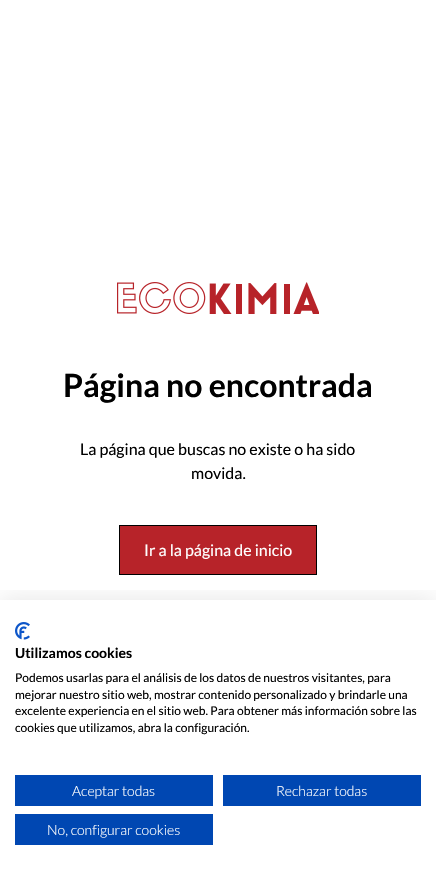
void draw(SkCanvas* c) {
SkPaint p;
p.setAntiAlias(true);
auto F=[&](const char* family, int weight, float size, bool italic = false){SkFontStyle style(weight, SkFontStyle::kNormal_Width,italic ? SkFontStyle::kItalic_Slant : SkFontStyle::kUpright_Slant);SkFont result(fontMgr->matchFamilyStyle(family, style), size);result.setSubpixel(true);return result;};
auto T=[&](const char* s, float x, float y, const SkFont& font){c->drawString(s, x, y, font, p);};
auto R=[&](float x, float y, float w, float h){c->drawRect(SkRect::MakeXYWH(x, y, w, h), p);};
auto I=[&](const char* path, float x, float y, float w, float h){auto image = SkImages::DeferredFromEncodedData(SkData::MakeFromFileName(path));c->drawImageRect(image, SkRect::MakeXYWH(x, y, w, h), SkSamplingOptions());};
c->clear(0xffffffff);
I("1.png",117,282,202,32);
auto f1 = F("Lato",700,32);
p.setColor(0xff000000);
T("Página no encontrada",63,397,f1);
auto f2 = F("Lato",400,16);
T("La página que buscas no existe o ha sido",80,455,f2);
T("movida.",191,479,f2);
p.setColor(0xffb72329);
c->drawRect(SkRect::MakeXYWH(119.5,525.5,197,49),p);
p.setStroke(true);
p.setStrokeWidth(1);
p.setColor(0xff000000);
c->drawRect(SkRect::MakeXYWH(119.5,525.5,197,49),p);
p.setStroke(false);
p.setColor(0xffffffff);
T("Ir a la página de inicio",144,556,f2);
c->save();
c->clipRect(SkRect::MakeXYWH(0,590,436,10));
p.setColor(0x1a000000);
p.setMaskFilter(SkMaskFilter::MakeBlur(kNormal_SkBlurStyle, 12));
c->drawRect(SkRect::MakeXYWH(0,600,436,272),p);
p.setMaskFilter(nullptr);
c->restore();
I("2.png",15,622,15,18);
auto f3 = F("Lato",700,14);
p.setColor(0xff000000);
T("Utilizamos cookies",15,658,f3);
auto f4 = F("Lato",400,12);
T("Podemos usarlas para el análisis de los datos de nuestros visitantes, para",15,682,f4);
T("mejorar nuestro sitio web, mostrar contenido personalizado y brindarle una",15,699,f4);
T("excelente experiencia en el sitio web. Para obtener más información sobre las",15,715,f4);
T("cookies que utilizamos, abra la configuración.",15,732,f4);
p.setColor(0xff0047b2);
R(15,775,198,31);
auto f5 = F("Lato",300,14);
p.setColor(0xffffffff);
T("Aceptar todas",72,796,f5);
p.setColor(0xff0047b2);
R(223,775,198,31);
p.setColor(0xffffffff);
T("Rechazar todas",276,796,f5);
p.setColor(0xff0047b2);
R(15,814,198,31);
p.setColor(0xffffffff);
T("No, configurar cookies",47,835,f5);
}
